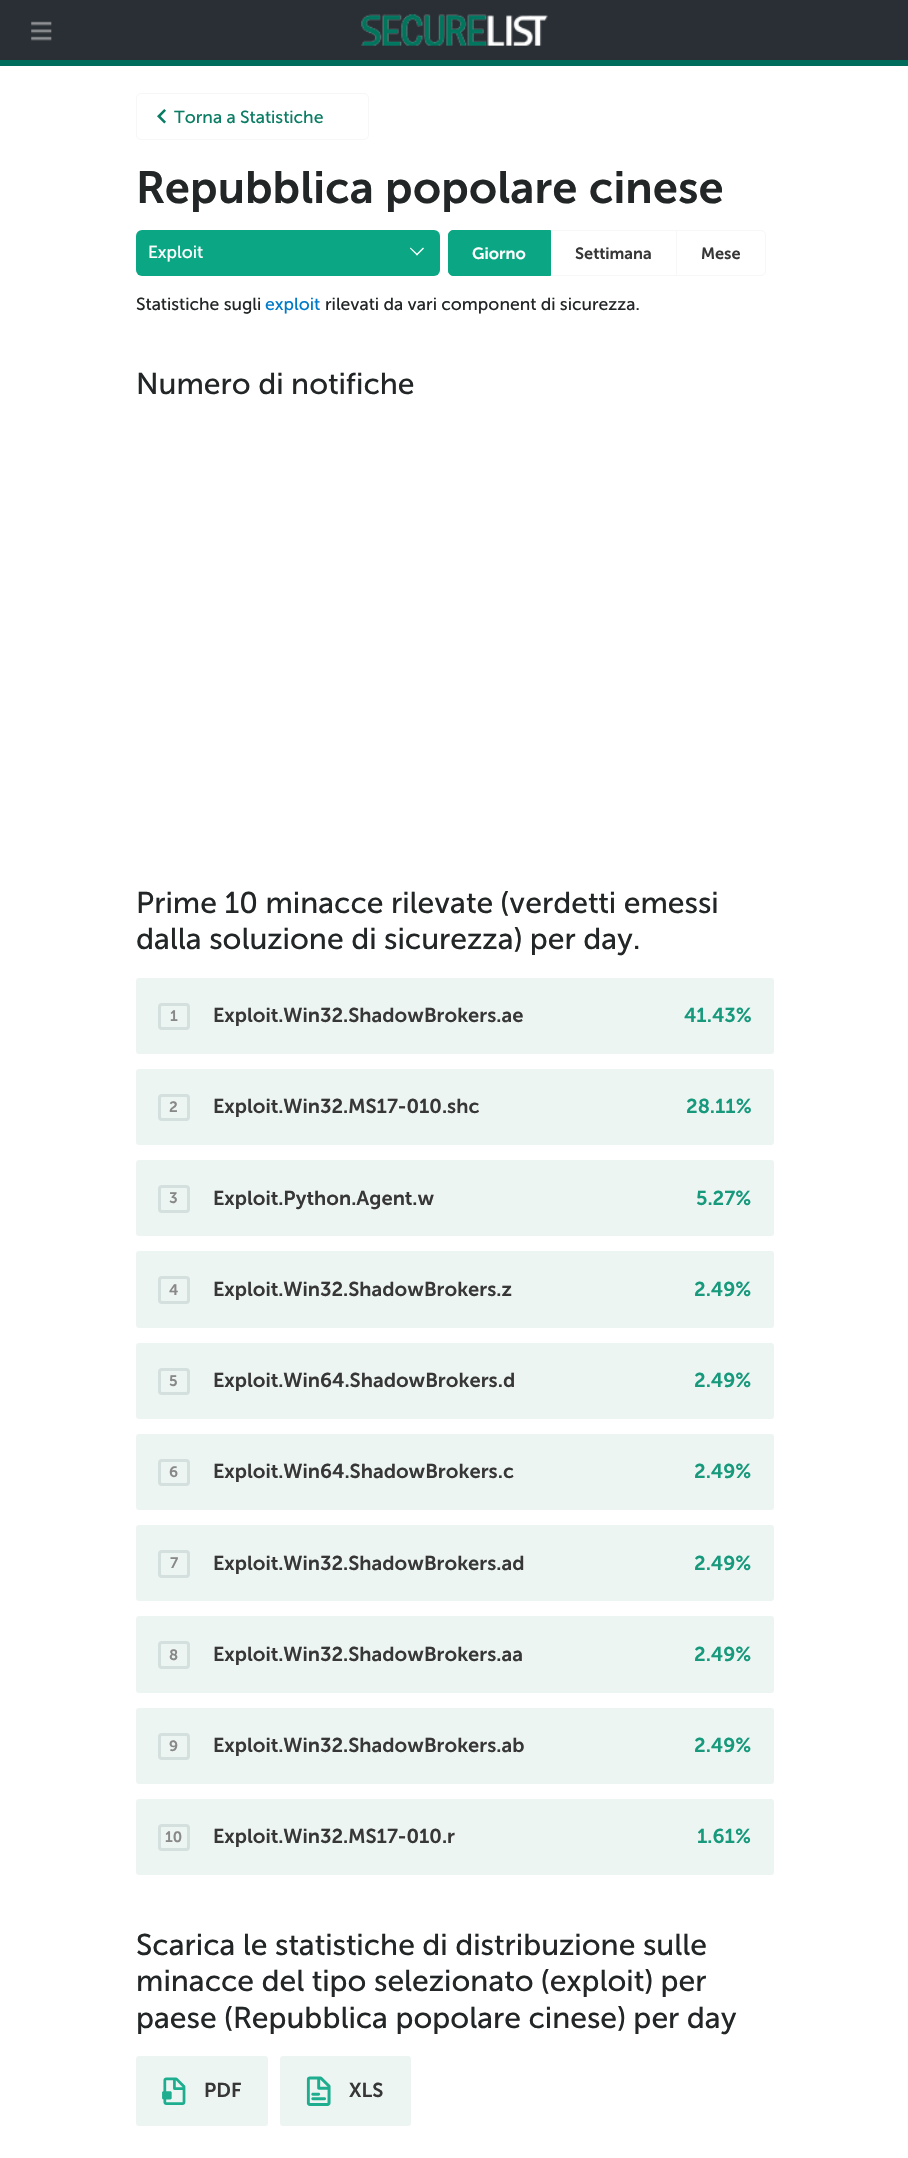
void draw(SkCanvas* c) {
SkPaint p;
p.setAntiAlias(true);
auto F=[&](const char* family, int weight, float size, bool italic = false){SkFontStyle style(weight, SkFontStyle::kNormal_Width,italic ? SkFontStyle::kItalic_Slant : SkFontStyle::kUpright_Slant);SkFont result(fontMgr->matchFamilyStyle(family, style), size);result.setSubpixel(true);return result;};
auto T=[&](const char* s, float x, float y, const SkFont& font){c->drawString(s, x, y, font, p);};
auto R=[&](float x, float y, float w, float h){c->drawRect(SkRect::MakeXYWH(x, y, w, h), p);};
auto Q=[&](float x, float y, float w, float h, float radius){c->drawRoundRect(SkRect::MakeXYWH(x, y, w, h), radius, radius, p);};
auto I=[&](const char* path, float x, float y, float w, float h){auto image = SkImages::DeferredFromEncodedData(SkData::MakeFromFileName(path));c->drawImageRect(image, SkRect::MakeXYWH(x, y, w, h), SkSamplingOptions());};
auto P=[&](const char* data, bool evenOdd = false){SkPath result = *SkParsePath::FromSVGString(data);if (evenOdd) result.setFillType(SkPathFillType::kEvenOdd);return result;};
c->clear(0xffffffff);
p.setColor(0xff2a2f35);
R(0,0,908,60);
p.setColor(0xff006d5c);
R(0,60,908,6);
I("1.png",31,21,21,20);
I("2.png",361,14,187,32);
p.setStroke(true);
p.setStrokeWidth(1);
p.setColor(0xfff7f7f7);
c->drawRoundRect(SkRect::MakeXYWH(136.5,93.5,232,46),4.5,4.5,p);
I("3.png",157,109,9,15);
auto f1 = F("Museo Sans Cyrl",400,17.5);
p.setStroke(false);
p.setColor(0xff0b7d64);
T("Torna a Statistiche",174,123,f1);
auto f2 = F("Museo Sans Cyrl",600,45);
p.setColor(0xff232627);
T("Repubblica popolare cinese",136,203,f2);
p.setColor(0xff0ba785);
Q(136,230,304,46,6);
p.setColor(0xffffffff);
T("Exploit",148,258,f1);
c->drawPath(P("M423 247.5l1 1l-7 7l-1-1z"),p);
c->drawPath(P("M410.5 247.5l7.5 7l-1 1l-7-7z"),p);
p.setStroke(true);
p.setColor(0xfff7f7f7);
c->drawRect(SkRect::MakeXYWH(550.5,230.5,127,45),p);
p.setStroke(false);
p.setColor(0xff0ba785);
c->drawPath(P("M453 230.5h97.5v45h-97.5c-2.5 0-4.5-2-4.5-4.5v-36c0-2.5 2-4.5 4.5-4.5z"),p);
p.setStroke(true);
c->drawPath(P("M453 230.5h97.5v45h-97.5c-2.5 0-4.5-2-4.5-4.5v-36c0-2.5 2-4.5 4.5-4.5z"),p);
auto f3 = F("Museo Sans Cyrl",600,16.25);
p.setStroke(false);
p.setColor(0xffffffff);
T("Giorno",472,259,f3);
p.setColor(0xff373737);
T("Settimana",575,259,f3);
p.setColor(0xffffffff);
c->drawPath(P("M676.5 230.5h84.5c2.5 0 4.5 2 4.5 4.5v36c0 2.5-2 4.5-4.5 4.5h-84.5z"),p);
p.setStroke(true);
p.setColor(0xfff7f7f7);
c->drawPath(P("M676.5 230.5h84.5c2.5 0 4.5 2 4.5 4.5v36c0 2.5-2 4.5-4.5 4.5h-84.5z"),p);
p.setStroke(false);
p.setColor(0xff373737);
T("Mese",701,259,f3);
p.setColor(0xff232627);
T("Statistiche sugli",136,310,f1);
p.setColor(0xff007ac9);
T("exploit",265,310,f1);
p.setColor(0xff232627);
T("rilevati da vari component di sicurezza.",325,310,f1);
auto f4 = F("Museo Sans Cyrl",400,30);
T("Numero di notifiche",136,394,f4);
T("Prime 10 minacce rilevate (verdetti emessi",136,913,f4);
T("dalla soluzione di sicurezza) per day.",136,949,f4);
p.setColor(0xffedf5f3);
Q(136,978,638,76,3);
p.setStroke(true);
p.setStrokeWidth(3);
p.setColor(0xffd3e0dd);
c->drawRoundRect(SkRect::MakeXYWH(159.5,1004.5,29,24),2.5,2.5,p);
auto f5 = F("Museo Sans Cyrl",600,15);
p.setStroke(false);
p.setColor(0xff888888);
T("1",170,1021,f5);
auto f6 = F("Museo Sans Cyrl",600,20);
p.setColor(0xff373737);
T("Exploit.Win32.ShadowBrokers.ae",213,1022,f6);
p.setColor(0xff17997c);
T("41.43%",684,1022,f6);
p.setColor(0xffedf5f3);
Q(136,1069,638,76,3);
p.setStroke(true);
p.setColor(0xffd3e0dd);
c->drawRoundRect(SkRect::MakeXYWH(159.5,1095.5,29,24),2.5,2.5,p);
p.setStroke(false);
p.setColor(0xff888888);
T("2",169,1112,f5);
p.setColor(0xff373737);
T("Exploit.Win32.MS17-010.shc",213,1113,f6);
p.setColor(0xff17997c);
T("28.11%",686,1113,f6);
p.setColor(0xffedf5f3);
Q(136,1160,638,76,3);
p.setStroke(true);
p.setColor(0xffd3e0dd);
c->drawRoundRect(SkRect::MakeXYWH(159.5,1186.5,29,25),2.5,2.5,p);
p.setStroke(false);
p.setColor(0xff888888);
T("3",169,1203,f5);
p.setColor(0xff373737);
T("Exploit.Python.Agent.w",213,1205,f6);
p.setColor(0xff17997c);
T("5.27%",696,1205,f6);
p.setColor(0xffedf5f3);
Q(136,1251,638,77,3);
p.setStroke(true);
p.setColor(0xffd3e0dd);
c->drawRoundRect(SkRect::MakeXYWH(159.5,1277.5,29,25),2.5,2.5,p);
p.setStroke(false);
p.setColor(0xff888888);
T("4",169,1295,f5);
p.setColor(0xff373737);
T("Exploit.Win32.ShadowBrokers.z",213,1296,f6);
p.setColor(0xff17997c);
T("2.49%",694,1296,f6);
p.setColor(0xffedf5f3);
Q(136,1343,638,76,3);
p.setStroke(true);
p.setColor(0xffd3e0dd);
c->drawRoundRect(SkRect::MakeXYWH(159.5,1369.5,29,24),2.5,2.5,p);
p.setStroke(false);
p.setColor(0xff888888);
T("5",169,1386,f5);
p.setColor(0xff373737);
T("Exploit.Win64.ShadowBrokers.d",213,1387,f6);
p.setColor(0xff17997c);
T("2.49%",694,1387,f6);
p.setColor(0xffedf5f3);
Q(136,1434,638,76,3);
p.setStroke(true);
p.setColor(0xffd3e0dd);
c->drawRoundRect(SkRect::MakeXYWH(159.5,1460.5,29,24),2.5,2.5,p);
p.setStroke(false);
p.setColor(0xff888888);
T("6",169,1477,f5);
p.setColor(0xff373737);
T("Exploit.Win64.ShadowBrokers.c",213,1478,f6);
p.setColor(0xff17997c);
T("2.49%",694,1478,f6);
p.setColor(0xffedf5f3);
Q(136,1525,638,76,3);
p.setStroke(true);
p.setColor(0xffd3e0dd);
c->drawRoundRect(SkRect::MakeXYWH(159.5,1551.5,29,25),2.5,2.5,p);
p.setStroke(false);
p.setColor(0xff888888);
T("7",170,1568,f5);
p.setColor(0xff373737);
T("Exploit.Win32.ShadowBrokers.ad",213,1570,f6);
p.setColor(0xff17997c);
T("2.49%",694,1570,f6);
p.setColor(0xffedf5f3);
Q(136,1616,638,77,3);
p.setStroke(true);
p.setColor(0xffd3e0dd);
c->drawRoundRect(SkRect::MakeXYWH(159.5,1642.5,29,25),2.5,2.5,p);
p.setStroke(false);
p.setColor(0xff888888);
T("8",169,1660,f5);
p.setColor(0xff373737);
T("Exploit.Win32.ShadowBrokers.aa",213,1661,f6);
p.setColor(0xff17997c);
T("2.49%",694,1661,f6);
p.setColor(0xffedf5f3);
Q(136,1708,638,76,3);
p.setStroke(true);
p.setColor(0xffd3e0dd);
c->drawRoundRect(SkRect::MakeXYWH(159.5,1734.5,29,24),2.5,2.5,p);
p.setStroke(false);
p.setColor(0xff888888);
T("9",169,1751,f5);
p.setColor(0xff373737);
T("Exploit.Win32.ShadowBrokers.ab",213,1752,f6);
p.setColor(0xff17997c);
T("2.49%",694,1752,f6);
p.setColor(0xffedf5f3);
Q(136,1799,638,76,3);
p.setStroke(true);
p.setColor(0xffd3e0dd);
c->drawRoundRect(SkRect::MakeXYWH(159.5,1825.5,29,24),2.5,2.5,p);
p.setStroke(false);
p.setColor(0xff888888);
T("10",165,1842,f5);
p.setColor(0xff373737);
T("Exploit.Win32.MS17-010.r",213,1843,f6);
p.setColor(0xff17997c);
T("1.61%",697,1843,f6);
p.setColor(0xff232627);
T("Scarica le statistiche di distribuzione sulle",136,1955,f4);
T("minacce del tipo selezionato (exploit) per",136,1991,f4);
T("paese (Repubblica popolare cinese) per day",136,2028,f4);
p.setColor(0xffedf5f3);
Q(136,2056,132,70,3);
I("4.png",162,2077,24,28);
p.setColor(0xff373737);
T("PDF",204,2097,f6);
p.setColor(0xffedf5f3);
Q(280,2056,131,70,3);
I("5.png",306,2076,25,30);
p.setColor(0xff373737);
T("XLS",349,2097,f6);
}
